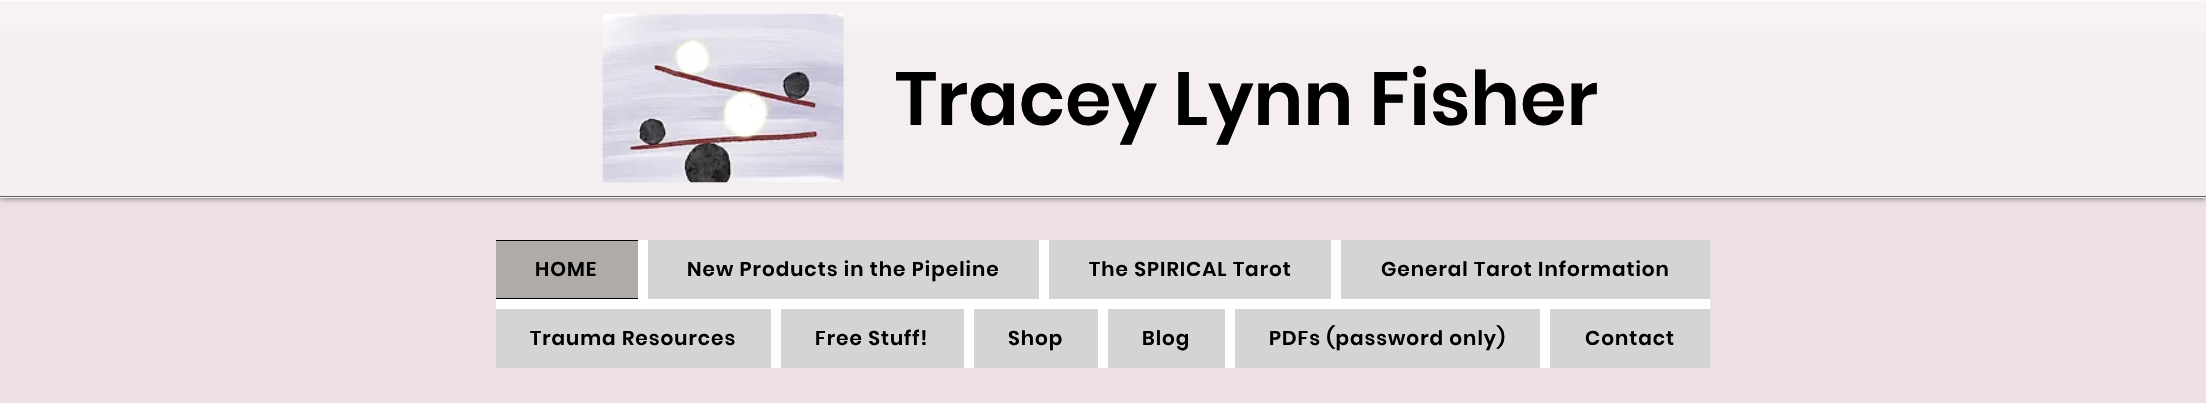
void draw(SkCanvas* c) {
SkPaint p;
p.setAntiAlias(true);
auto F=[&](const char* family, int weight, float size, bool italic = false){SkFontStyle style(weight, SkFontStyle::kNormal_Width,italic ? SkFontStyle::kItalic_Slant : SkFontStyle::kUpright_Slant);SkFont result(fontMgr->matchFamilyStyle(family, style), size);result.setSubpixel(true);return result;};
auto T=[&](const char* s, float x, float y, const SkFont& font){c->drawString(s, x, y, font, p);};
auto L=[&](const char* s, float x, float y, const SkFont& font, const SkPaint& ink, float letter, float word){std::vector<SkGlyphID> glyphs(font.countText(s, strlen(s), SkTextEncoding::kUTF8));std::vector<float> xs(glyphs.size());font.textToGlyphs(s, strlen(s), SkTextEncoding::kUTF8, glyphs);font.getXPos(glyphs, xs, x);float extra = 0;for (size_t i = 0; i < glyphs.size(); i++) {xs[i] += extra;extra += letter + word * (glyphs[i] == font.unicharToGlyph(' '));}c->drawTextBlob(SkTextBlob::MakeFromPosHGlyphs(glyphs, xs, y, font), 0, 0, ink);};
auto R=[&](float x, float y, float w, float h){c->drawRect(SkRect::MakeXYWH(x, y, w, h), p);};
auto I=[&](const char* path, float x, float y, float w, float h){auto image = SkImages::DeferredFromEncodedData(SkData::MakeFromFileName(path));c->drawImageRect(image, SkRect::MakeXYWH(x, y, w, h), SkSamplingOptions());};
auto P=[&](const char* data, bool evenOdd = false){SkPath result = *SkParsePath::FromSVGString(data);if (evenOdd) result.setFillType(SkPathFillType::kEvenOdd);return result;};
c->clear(0xffeddfe4);
c->save();
c->clipPath(P("M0 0h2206v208h-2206zm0 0h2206v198h-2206z",true),true);
p.setColor(0x99000000);
p.setMaskFilter(SkMaskFilter::MakeBlur(kNormal_SkBlurStyle, 3));
c->drawRect(SkRect::MakeXYWH(0,0,2206,198),p);
p.setMaskFilter(nullptr);
c->restore();
p.setColor(0x75ffffff);
R(0,1,2206,197);
I("1.png",0,1,2206,30);
p.setColor(0xff625f60);
R(0,196,2206,1);
p.setColor(0xfffcfafb);
R(0,0,2206,1);
I("2.png",602,14,242,169);
auto f1 = F("Poppins",600,75);
p.setColor(0xff000000);
T("Tracey Lynn Fisher",895,125,f1);
p.setColor(0xffffffff);
R(496,240,1214,128);
p.setColor(0xffafaba9);
R(496,241,142,57);
p.setColor(0xff000000);
R(496,240,142,1);
R(496,298,142,1);
auto f2 = F("Poppins",600,20);
L("HOME",535,276,f2,p,1,0);
p.setColor(0xffd4d4d4);
R(648,240,391,59);
p.setColor(0xff000000);
L("New Products in the Pipeline",687,276,f2,p,1,0);
p.setColor(0xffd4d4d4);
R(1049,240,282,59);
p.setColor(0xff000000);
L("The SPIRICAL Tarot",1089,276,f2,p,1,0);
p.setColor(0xffd4d4d4);
R(1341,240,369,59);
p.setColor(0xff000000);
L("General Tarot Information",1381,276,f2,p,1,0);
p.setColor(0xffd4d4d4);
R(496,309,275,59);
p.setColor(0xff000000);
L("Trauma Resources",530,345,f2,p,1,0);
p.setColor(0xffd4d4d4);
R(781,309,183,59);
p.setColor(0xff000000);
L("Free Stuff!",815,345,f2,p,1,0);
p.setColor(0xffd4d4d4);
R(974,309,124,59);
p.setColor(0xff000000);
L("Shop",1008,345,f2,p,1,0);
p.setColor(0xffd4d4d4);
R(1108,309,117,59);
p.setColor(0xff000000);
L("Blog",1142,345,f2,p,1,0);
p.setColor(0xffd4d4d4);
R(1235,309,305,59);
p.setColor(0xff000000);
L("PDFs (password only)",1269,345,f2,p,1,0);
p.setColor(0xffd4d4d4);
R(1550,309,160,59);
p.setColor(0xff000000);
L("Contact",1585,345,f2,p,1,0);
}
